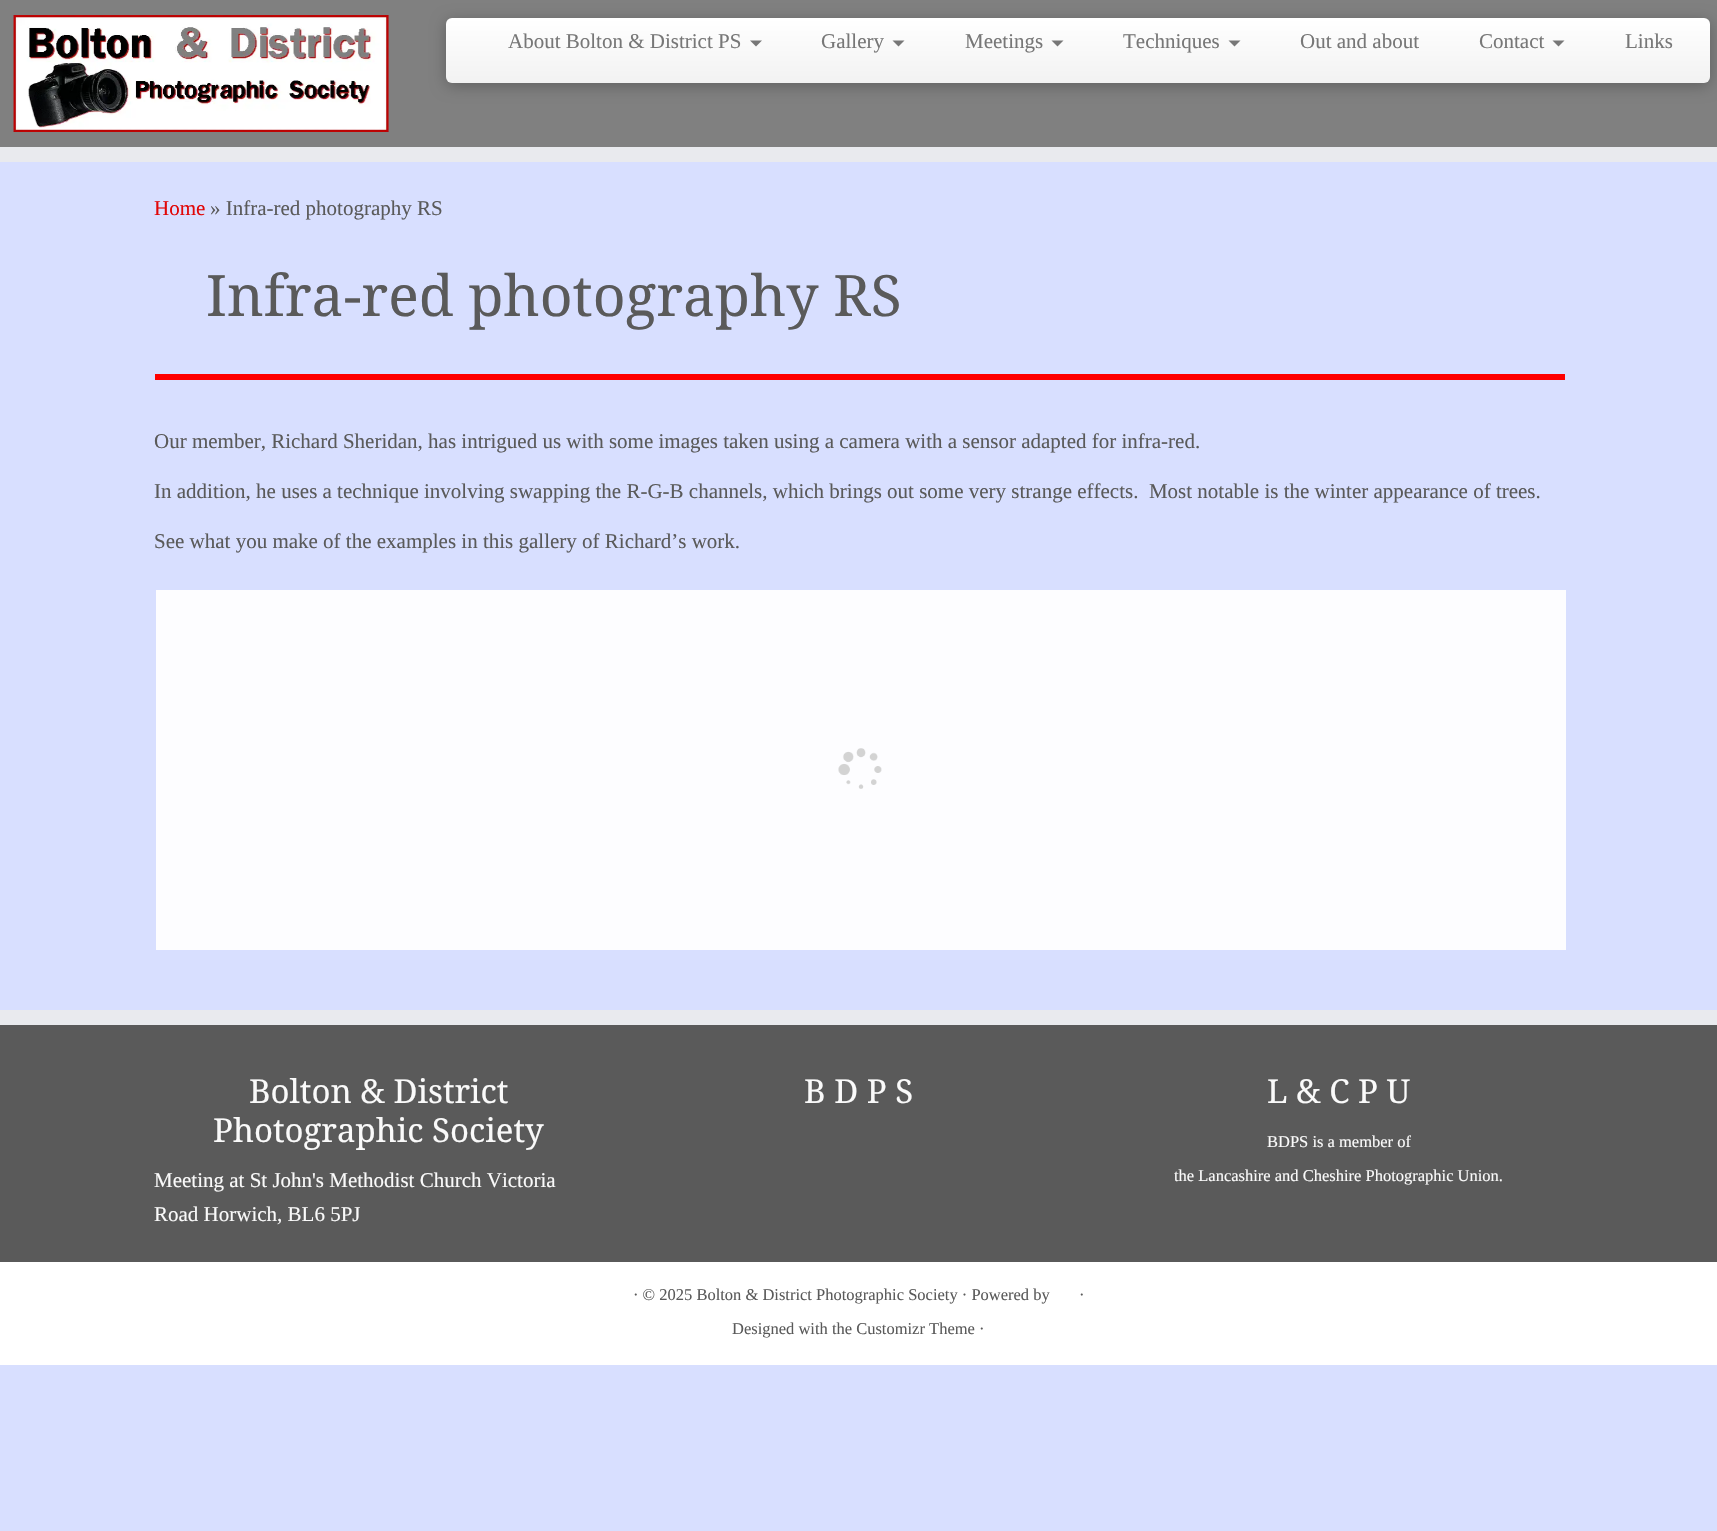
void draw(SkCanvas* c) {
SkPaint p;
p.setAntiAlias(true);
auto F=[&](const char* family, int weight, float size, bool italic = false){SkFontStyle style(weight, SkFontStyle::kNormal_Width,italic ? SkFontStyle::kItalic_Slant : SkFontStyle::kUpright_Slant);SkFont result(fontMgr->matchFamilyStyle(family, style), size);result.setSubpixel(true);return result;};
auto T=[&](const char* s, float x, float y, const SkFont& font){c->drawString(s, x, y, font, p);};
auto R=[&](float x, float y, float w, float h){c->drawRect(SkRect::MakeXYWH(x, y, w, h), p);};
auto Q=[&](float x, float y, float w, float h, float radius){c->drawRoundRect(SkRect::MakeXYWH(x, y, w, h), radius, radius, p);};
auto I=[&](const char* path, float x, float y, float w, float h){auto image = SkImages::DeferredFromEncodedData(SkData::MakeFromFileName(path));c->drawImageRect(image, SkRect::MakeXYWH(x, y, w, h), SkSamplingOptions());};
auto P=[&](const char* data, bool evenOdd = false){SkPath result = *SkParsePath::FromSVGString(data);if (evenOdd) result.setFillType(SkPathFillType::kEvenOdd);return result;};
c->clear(0xffd8dfff);
p.setColor(0xff808080);
R(0,0,1717,147);
p.setColor(0xffe9eaee);
R(0,147,1717,15);
I("1.png",13,15,376,117);
p.setColor(0x40000000);
p.setMaskFilter(SkMaskFilter::MakeBlur(kNormal_SkBlurStyle, 7.5));
c->drawRoundRect(SkRect::MakeXYWH(446,21,1264,65),6,6,p);
p.setMaskFilter(nullptr);
{
const SkColor colors[] = {0xffffffff,0xfff2f2f2};
const float stops[] = {0,1};
const SkPoint ends[] = {{1078,18}, {1078,83}};
p.setShader(SkGradientShader::MakeLinear(ends, colors, stops, 2, SkTileMode::kClamp));
p.setAlpha(255);
}
Q(446,18,1264,65,6);
auto f1 = F("Liberation Serif",400,21);
p.setShader(nullptr);
p.setColor(0xff777777);
T("About Bolton & District PS",508,48,f1);
c->drawPath(P("M750 40.5h12l-6 6z"),p);
T("Gallery",821,48,f1);
c->drawPath(P("M892.5 40.5h12l-6 6z"),p);
T("Meetings",965,48,f1);
c->drawPath(P("M1051.5 40.5h12l-6 6z"),p);
T("Techniques",1123,48,f1);
c->drawPath(P("M1228.5 40.5h12l-6 6z"),p);
T("Out and about",1300,48,f1);
T("Contact",1479,48,f1);
c->drawPath(P("M1552.5 40.5h12l-6 6z"),p);
T("Links",1625,48,f1);
p.setColor(0xffe10707);
T("Home",154,215,f1);
p.setColor(0xff5a5a5a);
T("» Infra-red photography RS",210,215,f1);
auto f2 = F("Noto Serif",400,57);
T("Infra-red photography RS",206,316,f2);
p.setColor(0xffff0000);
R(155,374,1410,6);
p.setColor(0xff5a5a5a);
T("Our member, Richard Sheridan, has intrigued us with some images taken using a camera with a sensor adapted for infra-red.",154,448,f1);
T("In addition, he uses a technique involving swapping the R-G-B channels, which brings out some very strange effects.  Most notable is the winter appearance of trees.",154,498,f1);
T("See what you make of the examples in this gallery of Richard’s work.",154,548,f1);
p.setColor(0xfffdfdff);
R(156,590,1410,360);
I("2.png",838,748,44,41);
p.setColor(0xff5a5a5a);
R(0,1025,1717,237);
p.setColor(0xffe9eaee);
R(0,1010,1717,15);
auto f3 = F("Noto Serif",400,33);
p.setColor(0xfffafafa);
T("Bolton & District",249,1103,f3);
T("Photographic Society",213,1142,f3);
T("Meeting at St John's Methodist Church Victoria",154,1187,f1);
T("Road Horwich, BL6 5PJ",154,1221,f1);
T("B D P S",804,1103,f3);
T("L & C P U",1267,1103,f3);
auto f4 = F("Liberation Serif",400,16.5);
T("BDPS is a member of",1267,1147,f4);
T("the Lancashire and Cheshire Photographic Union.",1174,1181,f4);
p.setColor(0xffffffff);
R(0,1262,1717,103);
p.setColor(0xff5a5a5a);
T("· © 2025 Bolton & District Photographic Society · Powered by",633,1300,f4);
T("·",1079,1300,f4);
T("Designed with the Customizr Theme ·",732,1334,f4);
}
